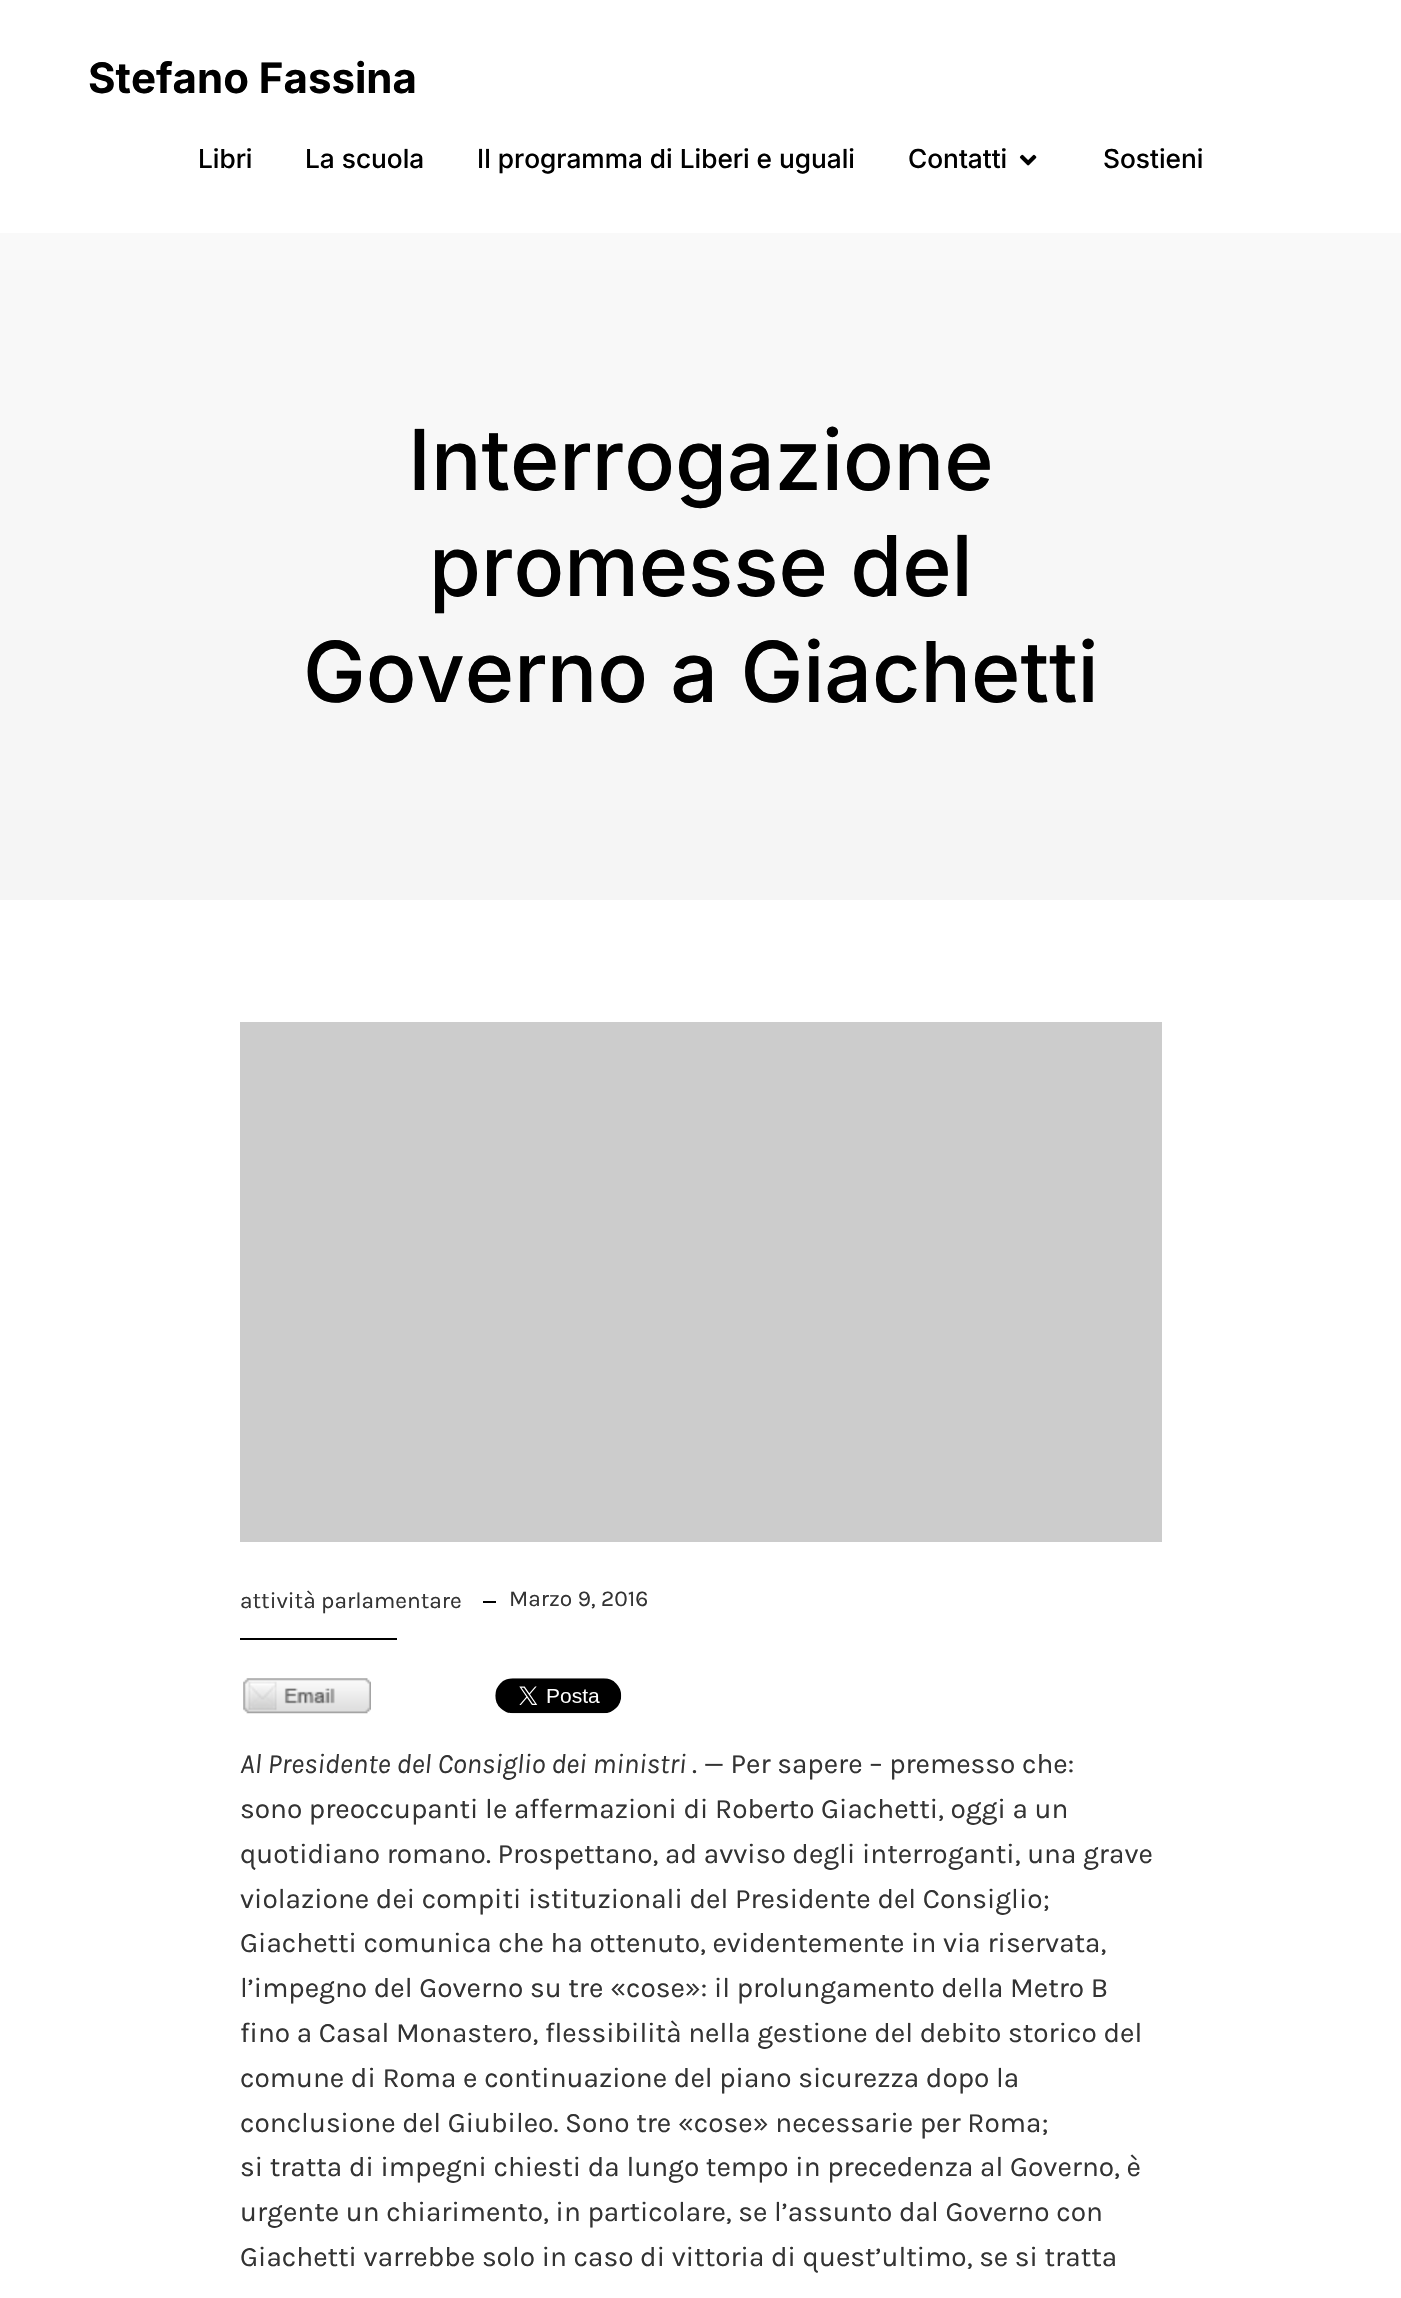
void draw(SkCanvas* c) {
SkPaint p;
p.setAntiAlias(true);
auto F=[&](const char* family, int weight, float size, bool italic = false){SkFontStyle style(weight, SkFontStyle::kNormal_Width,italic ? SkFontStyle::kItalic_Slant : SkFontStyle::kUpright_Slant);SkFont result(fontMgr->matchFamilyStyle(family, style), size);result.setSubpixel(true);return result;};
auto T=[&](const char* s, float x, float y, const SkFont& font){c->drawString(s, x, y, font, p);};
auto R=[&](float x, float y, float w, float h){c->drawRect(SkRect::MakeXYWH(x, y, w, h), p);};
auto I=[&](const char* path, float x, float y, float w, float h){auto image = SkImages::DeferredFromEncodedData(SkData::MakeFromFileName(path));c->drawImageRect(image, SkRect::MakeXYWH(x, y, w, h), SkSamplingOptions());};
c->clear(0xffffffff);
auto f1 = F("Inter",700,42);
p.setColor(0xff000000);
T("Stefano Fassina",88,93,f1);
auto f2 = F("Inter",500,26.25);
T("Libri",198,168,f2);
T("La scuola",305,168,f2);
T("Il programma di Liberi e uguali",477,168,f2);
T("Contatti",908,168,f2);
I("1.png",1019,154,18,12);
T("Sostieni",1103,168,f2);
{
const SkColor colors[] = {0xfff5f5f5,0xfffafafa};
const float stops[] = {0,1};
const SkPoint ends[] = {{701,900}, {701,0}};
p.setShader(SkGradientShader::MakeLinear(ends, colors, stops, 2, SkTileMode::kClamp));
p.setAlpha(255);
}
R(0,233,1401,667);
auto f3 = F("Inter",500,84);
p.setShader(nullptr);
p.setColor(0xff000000);
T("Interrogazione",408,490,f3);
T("promesse del",429,596,f3);
T("Governo a Giachetti",303,702,f3);
p.setColor(0xffcccccc);
R(240,1022,922,520);
auto f4 = F("Karla",400,22.75);
p.setColor(0xff333333);
T("attività parlamentare",240,1608,f4);
p.setColor(0xff000000);
R(483,1601,13,2);
p.setColor(0xff333333);
T("Marzo 9, 2016",509,1606,f4);
p.setColor(0xff000000);
R(240,1638,157,2);
I("2.png",243,1678,128,36);
I("3.png",495,1678,127,36);
auto f5 = F("Karla",400,28,true);
p.setColor(0xff333333);
T("Al Presidente del Consiglio dei ministri",240,1773,f5);
auto f6 = F("Karla",400,28);
T(". — Per sapere – premesso che:",692,1773,f6);
T("sono preoccupanti le affermazioni di Roberto Giachetti, oggi a un",240,1818,f6);
T("quotidiano romano. Prospettano, ad avviso degli interroganti, una grave",240,1863,f6);
T("violazione dei compiti istituzionali del Presidente del Consiglio;",240,1908,f6);
T("Giachetti comunica che ha ottenuto, evidentemente in via riservata,",240,1952,f6);
T("l’impegno del Governo su tre «cose»: il prolungamento della Metro B",240,1997,f6);
T("fino a Casal Monastero, flessibilità nella gestione del debito storico del",240,2042,f6);
T("comune di Roma e continuazione del piano sicurezza dopo la",240,2087,f6);
T("conclusione del Giubileo. Sono tre «cose» necessarie per Roma;",240,2132,f6);
T("si tratta di impegni chiesti da lungo tempo in precedenza al Governo, è",240,2176,f6);
T("urgente un chiarimento, in particolare, se l’assunto dal Governo con",240,2221,f6);
T("Giachetti varrebbe solo in caso di vittoria di quest’ultimo, se si tratta",240,2266,f6);
}
